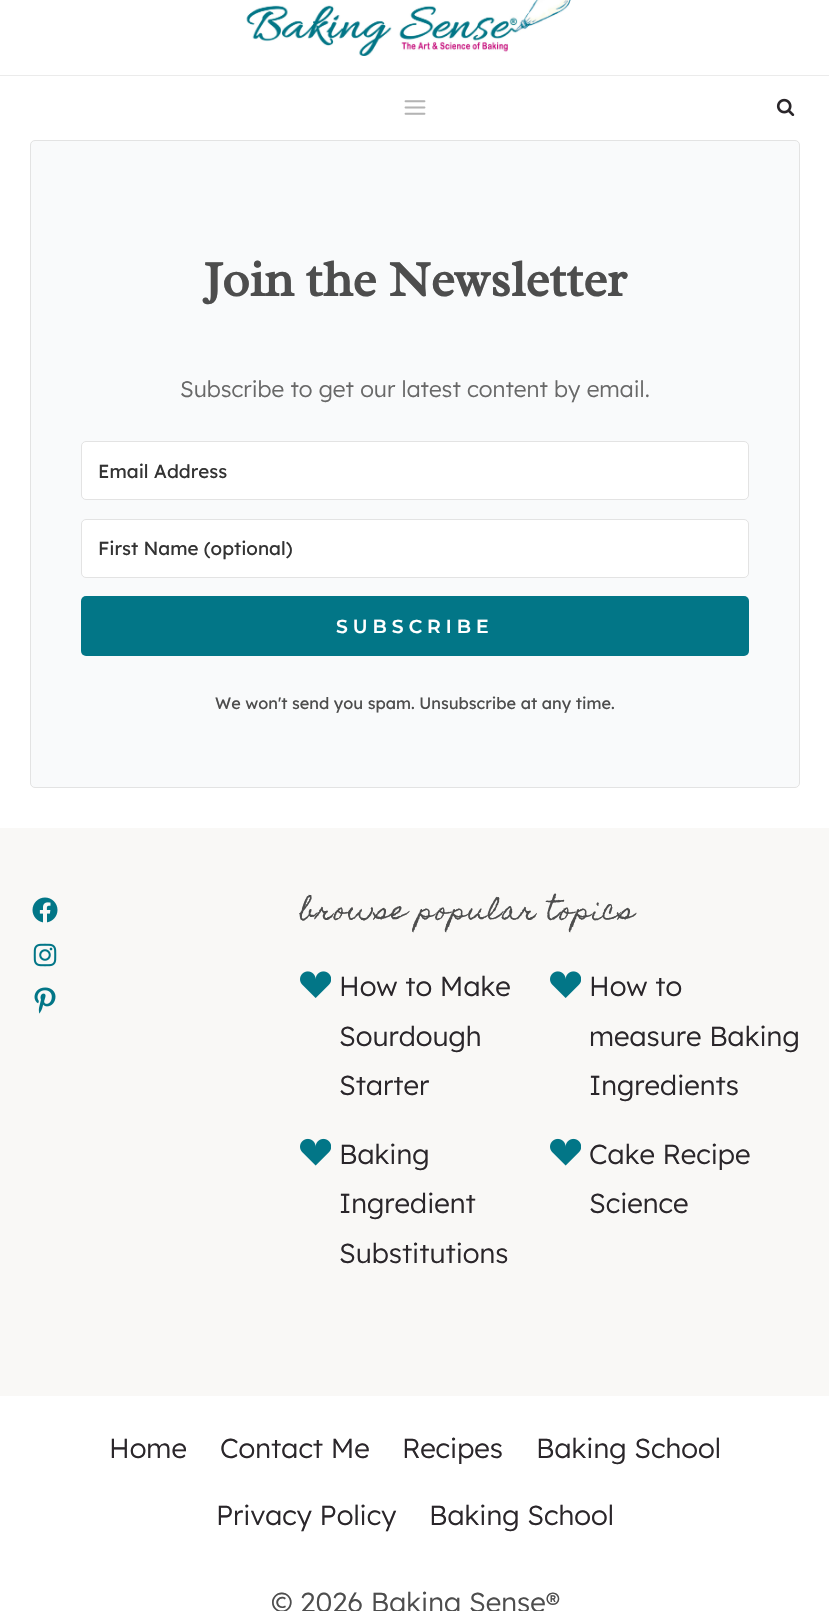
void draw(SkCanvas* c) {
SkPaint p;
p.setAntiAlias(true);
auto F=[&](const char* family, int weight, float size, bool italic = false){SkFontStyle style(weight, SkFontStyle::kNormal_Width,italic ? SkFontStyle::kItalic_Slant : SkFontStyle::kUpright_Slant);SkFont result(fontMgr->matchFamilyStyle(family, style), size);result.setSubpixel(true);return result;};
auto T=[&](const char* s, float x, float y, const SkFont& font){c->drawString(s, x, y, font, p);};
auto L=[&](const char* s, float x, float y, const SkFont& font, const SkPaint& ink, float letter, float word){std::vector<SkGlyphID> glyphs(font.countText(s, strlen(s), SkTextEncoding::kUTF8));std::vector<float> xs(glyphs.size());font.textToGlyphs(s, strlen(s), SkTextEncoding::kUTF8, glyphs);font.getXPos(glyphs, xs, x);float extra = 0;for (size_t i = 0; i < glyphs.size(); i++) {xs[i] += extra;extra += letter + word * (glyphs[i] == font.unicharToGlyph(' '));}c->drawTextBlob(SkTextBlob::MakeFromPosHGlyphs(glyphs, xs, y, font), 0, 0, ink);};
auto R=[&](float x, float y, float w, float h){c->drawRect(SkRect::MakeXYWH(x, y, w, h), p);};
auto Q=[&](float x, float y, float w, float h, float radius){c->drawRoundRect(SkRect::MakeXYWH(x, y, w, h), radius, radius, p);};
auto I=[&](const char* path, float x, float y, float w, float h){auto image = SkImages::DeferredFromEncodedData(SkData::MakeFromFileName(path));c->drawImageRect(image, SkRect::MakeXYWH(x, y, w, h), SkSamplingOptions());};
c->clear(0xffffffff);
p.setColor(0xffebebeb);
R(0,75,829,1);
I("1.png",246,0,325,56);
I("2.png",404,100,22,15);
I("3.png",776,98,19,18);
p.setColor(0xfff9fafb);
c->drawRoundRect(SkRect::MakeXYWH(30.5,140.5,769,647),4.5,4.5,p);
p.setStroke(true);
p.setStrokeWidth(1);
p.setColor(0xffe3e3e3);
c->drawRoundRect(SkRect::MakeXYWH(30.5,140.5,769,647),4.5,4.5,p);
auto f1 = F("Radley",700,50.6);
p.setStroke(false);
p.setColor(0xff4d4d4d);
T("Join the Newsletter",204,296,f1);
auto f2 = F("Lexend",300,22.5);
p.setColor(0xff686868);
T("Subscribe to get our latest content by email.",180,397,f2);
p.setColor(0xffffffff);
c->drawRoundRect(SkRect::MakeXYWH(81.5,441.5,667,58),4.5,4.5,p);
p.setStroke(true);
p.setColor(0xffe3e3e3);
c->drawRoundRect(SkRect::MakeXYWH(81.5,441.5,667,58),4.5,4.5,p);
auto f3 = F("Lexend",400,18.75);
p.setStroke(false);
p.setColor(0xff333333);
T("Email Address",98,478,f3);
p.setColor(0xffffffff);
c->drawRoundRect(SkRect::MakeXYWH(81.5,519.5,667,58),4.5,4.5,p);
p.setStroke(true);
p.setColor(0xffe3e3e3);
c->drawRoundRect(SkRect::MakeXYWH(81.5,519.5,667,58),4.5,4.5,p);
p.setStroke(false);
p.setColor(0xff333333);
T("First Name (optional)",98,555,f3);
p.setColor(0xff027687);
Q(81,596,668,60,5);
auto f4 = F("Montserrat",100,18.75);
p.setColor(0xffffffff);
L("SUBSCRIBE",336,633,f4,p,5,0);
auto f5 = F("Lexend",400,16.25);
p.setColor(0xff4d4d4d);
T("We won't send you spam. Unsubscribe at any time.",215,709,f5);
p.setColor(0xfff9f8f6);
R(0,828,829,568);
I("4.png",32,897,26,26);
I("5.png",33,943,24,24);
I("6.png",34,987,22,27);
auto f6 = F("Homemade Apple",400,25);
p.setColor(0xff4d4d4d);
L("browse popular topics",300,919,f6,p,1.25,0);
I("7.png",300,971,31,27);
auto f7 = F("Lexend",300,27.5);
p.setColor(0xff2a262a);
T("How to Make",339,996,f7);
T("Sourdough",339,1046,f7);
T("Starter",339,1095,f7);
I("7.png",550,971,31,27);
T("How to",589,996,f7);
T("measure Baking",589,1046,f7);
T("Ingredients",589,1095,f7);
I("8.png",300,1138,31,28);
T("Baking",339,1164,f7);
T("Ingredient",339,1213,f7);
T("Substitutions",339,1263,f7);
I("8.png",550,1138,31,28);
T("Cake Recipe",589,1164,f7);
T("Science",589,1213,f7);
T("Home",109,1458,f7);
T("Contact Me",220,1458,f7);
T("Recipes",402,1458,f7);
T("Baking School",536,1458,f7);
T("Privacy Policy",216,1525,f7);
T("Baking School",429,1525,f7);
p.setColor(0xff4d4d4d);
T("© 2026 Baking Sense®",271,1612,f7);
}
